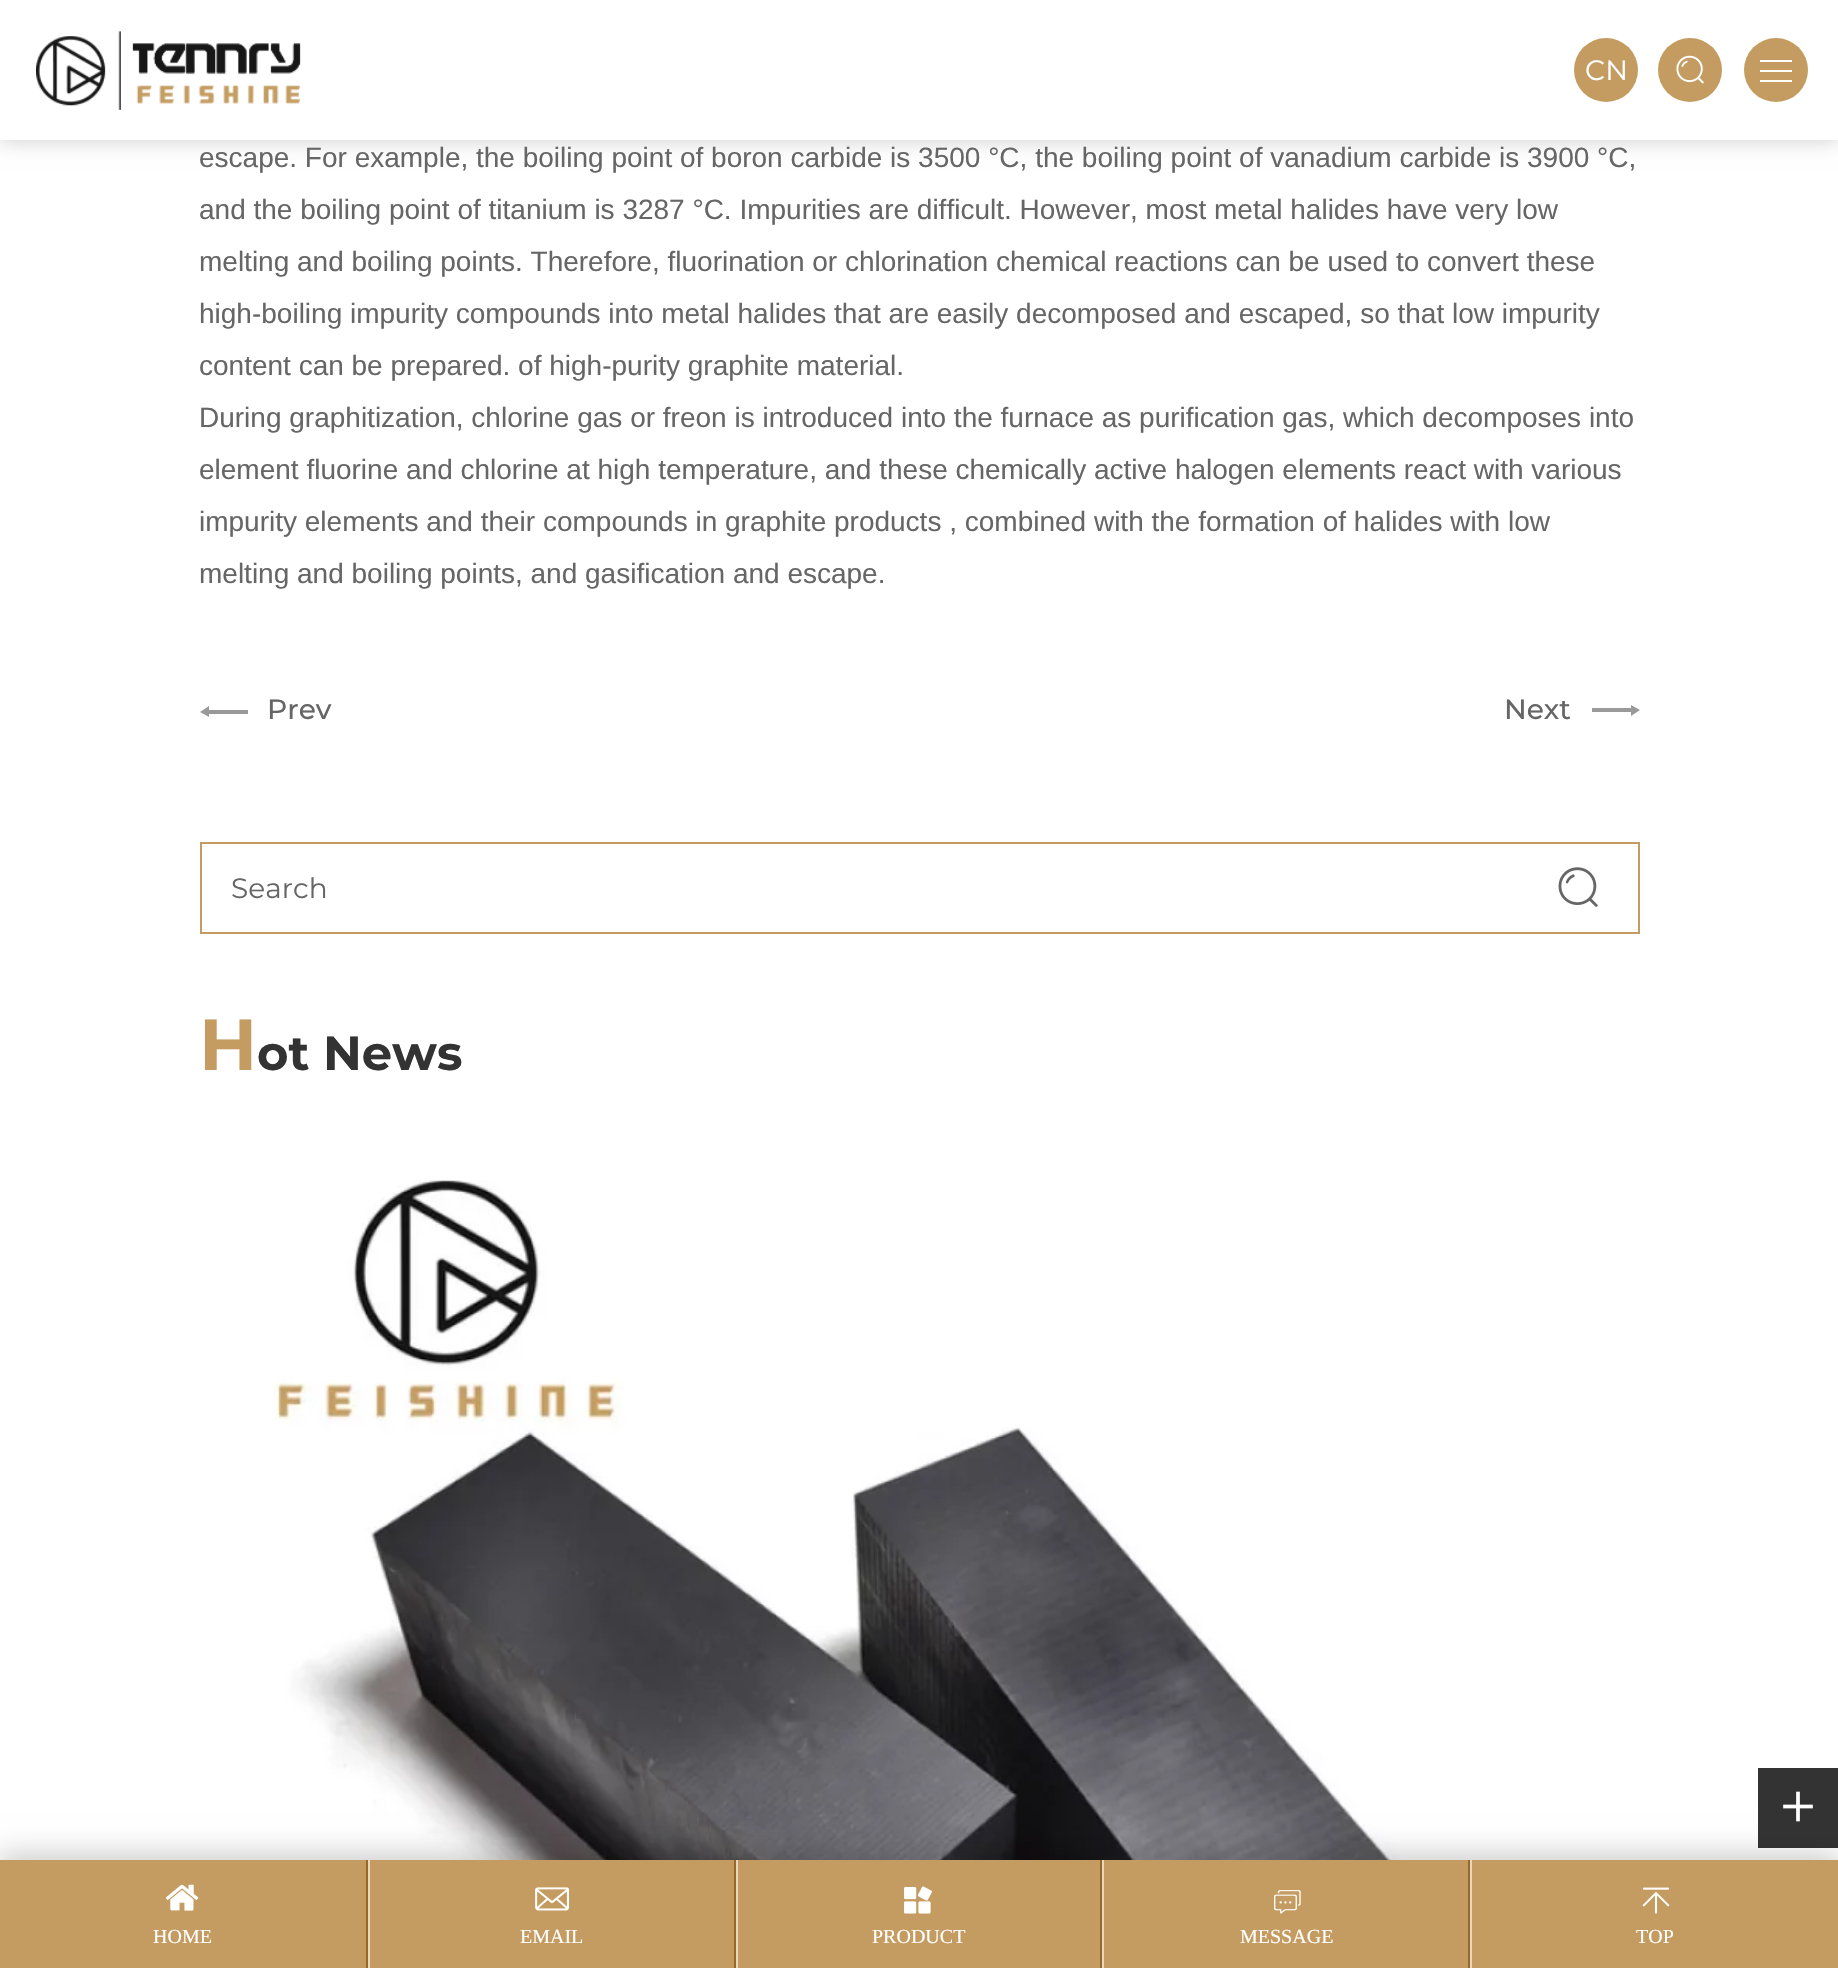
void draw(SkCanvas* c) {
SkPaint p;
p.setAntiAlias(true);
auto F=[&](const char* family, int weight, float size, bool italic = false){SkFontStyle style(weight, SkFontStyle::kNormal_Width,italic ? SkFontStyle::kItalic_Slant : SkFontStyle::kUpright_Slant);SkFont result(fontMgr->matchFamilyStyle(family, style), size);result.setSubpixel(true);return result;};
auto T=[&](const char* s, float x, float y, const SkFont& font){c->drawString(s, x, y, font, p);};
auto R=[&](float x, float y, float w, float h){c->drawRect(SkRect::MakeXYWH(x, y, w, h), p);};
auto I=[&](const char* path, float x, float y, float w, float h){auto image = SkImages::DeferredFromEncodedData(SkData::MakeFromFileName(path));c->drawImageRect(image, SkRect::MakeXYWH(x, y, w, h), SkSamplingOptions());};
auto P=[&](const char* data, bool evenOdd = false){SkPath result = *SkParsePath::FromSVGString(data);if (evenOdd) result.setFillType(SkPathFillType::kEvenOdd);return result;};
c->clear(0xffffffff);
p.setColor(0x33000000);
p.setMaskFilter(SkMaskFilter::MakeBlur(kNormal_SkBlurStyle, 10));
c->drawRect(SkRect::MakeXYWH(0,0,1838,140),p);
p.setMaskFilter(nullptr);
p.setColor(0xffffffff);
R(0,0,1838,140);
I("1.png",36,31,265,79);
p.setColor(0xffc49c61);
c->drawCircle(1606,70,32,p);
auto f1 = F("Montserrat",400,28);
p.setColor(0xffffffff);
T("CN",1585,80,f1);
p.setColor(0xffc49c61);
c->drawCircle(1690,70,32,p);
I("2.png",1676,55,28,29);
c->drawCircle(1776,70,32,p);
p.setColor(0xffffffff);
R(1760,60,32,2);
R(1760,70,32,2);
R(1760,80,32,2);
auto f2 = F("Liberation Sans",400,28);
p.setColor(0xff666666);
T("escape. For example, the boiling point of boron carbide is 3500 °C, the boiling point of vanadium carbide is 3900 °C,",199,167,f2);
T("and the boiling point of titanium is 3287 °C. Impurities are difficult. However, most metal halides have very low",199,219,f2);
T("melting and boiling points. Therefore, fluorination or chlorination chemical reactions can be used to convert these",199,271,f2);
T("high-boiling impurity compounds into metal halides that are easily decomposed and escaped, so that low impurity",199,323,f2);
T("content can be prepared. of high-purity graphite material.",199,375,f2);
T("During graphitization, chlorine gas or freon is introduced into the furnace as purification gas, which decomposes into",199,427,f2);
T("element fluorine and chlorine at high temperature, and these chemically active halogen elements react with various",199,479,f2);
T("impurity elements and their compounds in graphite products , combined with the formation of halides with low",199,531,f2);
T("melting and boiling points, and gasification and escape.",199,583,f2);
p.setColor(0xff999999);
c->drawPath(P("M248 714h-40v-4h40zm-39 3l-9-5l9-6z"),p);
auto f3 = F("Montserrat",500,28);
p.setColor(0xff666666);
T("Prev",267,719,f3);
T("Next",1504,719,f3);
p.setColor(0xff999999);
c->drawPath(P("M1592 708h40v4h-40zm39-3l9 5l-9 6z"),p);
p.setStroke(true);
p.setStrokeWidth(2);
p.setColor(0xffc49c61);
c->drawRect(SkRect::MakeXYWH(201,843,1438,90),p);
p.setStroke(false);
p.setColor(0xff666666);
T("Search",231,898,f1);
I("3.png",1558,867,40,40);
auto f4 = F("Montserrat",700,72);
p.setColor(0xffc49c61);
T("H",199,1070,f4);
auto f5 = F("Montserrat",700,48);
p.setColor(0xff333333);
T("ot News",257,1070,f5);
I("4.png",274,1180,1165,680);
p.setColor(0x33000000);
p.setMaskFilter(SkMaskFilter::MakeBlur(kNormal_SkBlurStyle, 14));
c->drawRect(SkRect::MakeXYWH(-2,1854,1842,112),p);
p.setMaskFilter(nullptr);
p.setColor(0xcc000000);
R(1758,1768,80,80);
I("5.png",1783,1791,30,31);
p.setColor(0xffc49c61);
R(0,1860,1838,108);
p.setColor(0xff986a26);
R(366,1860,2,108);
I("6.png",165,1884,34,27);
auto f6 = F("Liberation Serif",400,20);
p.setColor(0xffffffff);
T("HOME",153,1943,f6);
p.setColor(0xff986a26);
R(734,1860,2,108);
p.setColor(0xffe7d7c0);
R(368,1860,2,108);
I("7.png",535,1887,34,24);
p.setColor(0xffffffff);
T("EMAIL",520,1943,f6);
p.setColor(0xff986a26);
R(1100,1860,2,108);
p.setColor(0xffe7d7c0);
R(736,1860,2,108);
I("8.png",904,1886,28,28);
p.setColor(0xffffffff);
T("PRODUCT",872,1943,f6);
p.setColor(0xff986a26);
R(1468,1860,2,108);
p.setColor(0xffe7d7c0);
R(1102,1860,2,108);
I("9.png",1274,1890,27,24);
p.setColor(0xffffffff);
T("MESSAGE",1240,1943,f6);
p.setColor(0xffe7d7c0);
R(1470,1860,2,108);
I("10.png",1642,1887,28,27);
p.setColor(0xffffffff);
T("TOP",1636,1943,f6);
}
